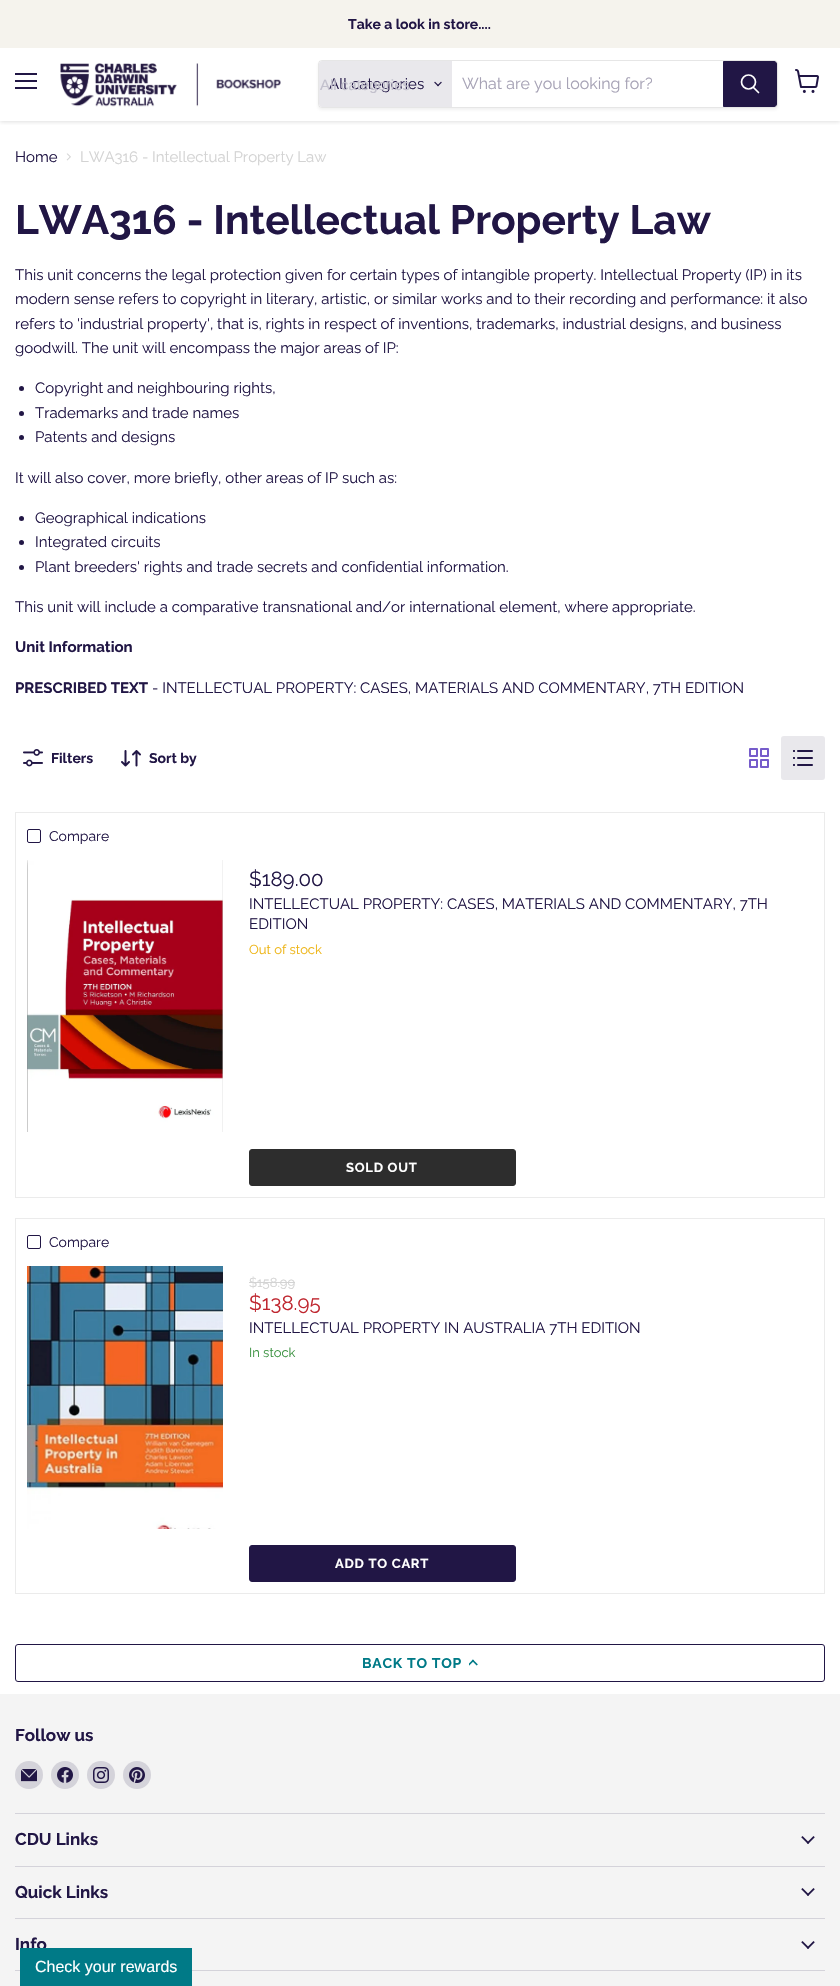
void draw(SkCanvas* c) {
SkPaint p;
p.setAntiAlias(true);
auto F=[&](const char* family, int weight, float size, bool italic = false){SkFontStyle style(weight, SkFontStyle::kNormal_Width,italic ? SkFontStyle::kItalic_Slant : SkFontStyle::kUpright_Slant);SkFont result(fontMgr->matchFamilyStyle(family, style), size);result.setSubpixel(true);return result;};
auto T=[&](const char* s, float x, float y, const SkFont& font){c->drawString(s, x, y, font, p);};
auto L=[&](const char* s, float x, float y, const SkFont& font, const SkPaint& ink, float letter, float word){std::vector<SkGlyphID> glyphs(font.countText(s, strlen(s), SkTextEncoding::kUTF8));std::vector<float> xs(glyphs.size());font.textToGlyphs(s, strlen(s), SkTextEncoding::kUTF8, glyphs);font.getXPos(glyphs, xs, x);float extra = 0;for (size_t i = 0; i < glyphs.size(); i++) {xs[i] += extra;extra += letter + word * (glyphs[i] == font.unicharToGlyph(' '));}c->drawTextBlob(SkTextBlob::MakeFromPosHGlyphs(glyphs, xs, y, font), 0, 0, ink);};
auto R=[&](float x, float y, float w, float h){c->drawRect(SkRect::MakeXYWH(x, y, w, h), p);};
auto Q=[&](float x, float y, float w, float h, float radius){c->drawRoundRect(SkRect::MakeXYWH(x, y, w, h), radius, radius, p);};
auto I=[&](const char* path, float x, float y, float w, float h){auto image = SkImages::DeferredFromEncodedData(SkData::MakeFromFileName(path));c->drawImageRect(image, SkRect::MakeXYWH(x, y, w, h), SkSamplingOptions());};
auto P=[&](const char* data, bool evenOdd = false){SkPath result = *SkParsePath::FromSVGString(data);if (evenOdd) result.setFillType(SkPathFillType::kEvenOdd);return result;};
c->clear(0xffffffff);
c->save();
c->clipRect(SkRect::MakeXYWH(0,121,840,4));
p.setColor(0x40808080);
p.setMaskFilter(SkMaskFilter::MakeBlur(kNormal_SkBlurStyle, 2));
c->drawRect(SkRect::MakeXYWH(0,49,840,73),p);
p.setMaskFilter(nullptr);
c->restore();
p.setColor(0xfff5f3ed);
R(0,0,840,48);
auto f1 = F("Raleway",700,14);
p.setColor(0xff211645);
T("Take a look in store....",348,29,f1);
R(15,73,22,2);
R(15,80,22,2);
R(15,87,22,2);
I("1.png",60,63,221,44);
c->save();
c->clipPath(P("M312 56h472v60h-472zm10 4h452c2 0 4 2 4 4v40c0 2-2 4-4 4h-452c-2 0-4-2-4-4v-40c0-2 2-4 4-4z",true),true);
p.setColor(0x1c808080);
p.setMaskFilter(SkMaskFilter::MakeBlur(kNormal_SkBlurStyle, 1.5));
c->drawRoundRect(SkRect::MakeXYWH(318,62,460,48),4,4,p);
p.setMaskFilter(nullptr);
c->restore();
p.setStroke(true);
p.setStrokeWidth(1);
p.setColor(0x33808080);
c->drawRoundRect(SkRect::MakeXYWH(318.5,60.5,459,47),3.5,3.5,p);
p.setStroke(false);
p.setColor(0xffe9e8ec);
c->drawPath(P("M322 61h130v46h-130c-1.5 0-3-1.5-3-3v-40c0-1.5 1.5-3 3-3z"),p);
auto f2 = F("Raleway",400,15);
p.setColor(0xff211645);
T("All categories",329,89,f2);
auto f3 = F("Liberation Sans",400,15);
p.setColor(0xffc3c1cd);
T("All categories",320,90,f3);
I("2.png",434,81,8,6);
auto f4 = F("Raleway",400,16);
p.setColor(0xffa6a2b5);
T("What are you looking for?",462,89,f4);
p.setColor(0xff211645);
c->drawPath(P("M723.5 61.5h50.5c1.5 0 2.5 1 2.5 2.5v40c0 1.5-1 2.5-2.5 2.5h-50.5z"),p);
p.setStroke(true);
c->drawPath(P("M723.5 61.5h50.5c1.5 0 2.5 1 2.5 2.5v40c0 1.5-1 2.5-2.5 2.5h-50.5z"),p);
p.setStrokeWidth(1.7);
p.setStrokeCap(SkPaint::kRound_Cap);
p.setColor(0xffffffff);
c->drawPath(P("M758.5 92.5l-5-5"),p);
p.setStrokeCap(SkPaint::kButt_Cap);
c->drawCircle(748.5,82,7,p);
I("3.png",795,69,24,24);
p.setStroke(false);
p.setColor(0xff211645);
T("Home",15,162,f2);
I("4.png",66,153,5,8);
p.setColor(0xffd3d3d3);
T("LWA316 - Intellectual Property Law",80,162,f2);
auto f5 = F("Raleway",700,40.75);
p.setColor(0xff211645);
T("LWA316 - Intellectual Property Law",15,234,f5);
T("This unit concerns the legal protection given for certain types of intangible property. Intellectual Property (IP) in its",15,280,f2);
T("modern sense refers to copyright in literary, artistic, or similar works and to their recording and performance: it also",15,304,f2);
T("refers to 'industrial property', that is, rights in respect of inventions, trademarks, industrial designs, and business",15,329,f2);
T("goodwill. The unit will encompass the major areas of IP:",15,353,f2);
c->drawCircle(21.5,388.5,2.5,p);
T("Copyright and neighbouring rights,",35,393,f2);
c->drawCircle(21.5,413.5,2.5,p);
T("Trademarks and trade names",35,418,f2);
c->drawCircle(21.5,437.5,2.5,p);
T("Patents and designs",35,442,f2);
T("It will also cover, more briefly, other areas of IP such as:",15,483,f2);
c->drawCircle(21.5,518.5,2.5,p);
T("Geographical indications",35,523,f2);
c->drawCircle(21.5,542.5,2.5,p);
T("Integrated circuits",35,547,f2);
c->drawCircle(21.5,567.5,2.5,p);
T("Plant breeders' rights and trade secrets and confidential information.",35,572,f2);
T("This unit will include a comparative transnational and/or international element, where appropriate.",15,612,f2);
auto f6 = F("Raleway",700,15);
T("Unit Information",15,652,f6);
T("PRESCRIBED TEXT",15,693,f6);
T("- INTELLECTUAL PROPERTY: CASES, MATERIALS AND COMMENTARY, 7TH EDITION",152,693,f2);
I("5.png",23,749,20,18);
T("Filters",51,763,f1);
I("6.png",121,750,20,17);
T("Sort by",149,763,f1);
I("7.png",749,748,20,20);
p.setColor(0xffe9e8ec);
Q(781,736,44,44,3);
I("8.png",793,750,20,16);
p.setStroke(true);
p.setStrokeWidth(1);
p.setColor(0xffebebeb);
c->drawRect(SkRect::MakeXYWH(15.5,812.5,809,385),p);
p.setColor(0xff211645);
c->drawRoundRect(SkRect::MakeXYWH(27.5,829.5,13,13),1.5,1.5,p);
auto f7 = F("Raleway",400,14);
p.setStroke(false);
T("Compare",49,841,f7);
I("9.png",27,860,196,272);
auto f8 = F("Raleway",400,20.5);
T("$189.00",249,886,f8);
T("INTELLECTUAL PROPERTY: CASES, MATERIALS AND COMMENTARY, 7TH",249,909,f2);
T("EDITION",249,929,f2);
auto f9 = F("Raleway",400,13);
p.setColor(0xffeeb413);
T("Out of stock",249,954,f9);
p.setColor(0xff2d2d2d);
c->drawRoundRect(SkRect::MakeXYWH(249.5,1149.5,266,36),2.5,2.5,p);
p.setStroke(true);
c->drawRoundRect(SkRect::MakeXYWH(249.5,1149.5,266,36),2.5,2.5,p);
auto f10 = F("Raleway",700,13);
p.setStroke(false);
p.setColor(0xffffffff);
L("SOLD OUT",346,1172,f10,p,.75,0);
p.setStroke(true);
p.setColor(0xffebebeb);
c->drawRect(SkRect::MakeXYWH(15.5,1218.5,809,375),p);
p.setColor(0xff211645);
c->drawRoundRect(SkRect::MakeXYWH(27.5,1235.5,13,13),1.5,1.5,p);
p.setStroke(false);
T("Compare",49,1247,f7);
I("10.png",27,1266,196,263);
p.setColor(0xffd3d3d3);
T("$158.99",249,1287,f9);
R(249,1282,46,1);
p.setColor(0xffbf262f);
T("$138.95",249,1310,f8);
p.setColor(0xff211645);
T("INTELLECTUAL PROPERTY IN AUSTRALIA 7TH EDITION",249,1333,f2);
p.setColor(0xff3c9342);
T("In stock",249,1357,f9);
p.setColor(0xff211645);
c->drawRoundRect(SkRect::MakeXYWH(249.5,1545.5,266,36),2.5,2.5,p);
p.setStroke(true);
c->drawRoundRect(SkRect::MakeXYWH(249.5,1545.5,266,36),2.5,2.5,p);
p.setStroke(false);
p.setColor(0xffffffff);
L("ADD TO CART",335,1568,f10,p,.75,0);
p.setStroke(true);
p.setColor(0xff211645);
c->drawRoundRect(SkRect::MakeXYWH(15.5,1644.5,809,37),2.5,2.5,p);
p.setStroke(false);
p.setColor(0xff007a87);
L("BACK TO TOP",362,1668,f1,p,.75,0);
I("11.png",469,1659,9,7);
p.setColor(0xfff4f4f4);
R(0,1694,840,292);
p.setColor(0xffd4d3da);
R(15,1813,810,1);
auto f11 = F("Raleway",700,17);
p.setColor(0xff211645);
T("Follow us",15,1741,f11);
p.setColor(0xffd4d3da);
c->drawCircle(29,1775,14,p);
I("12.png",21,1769,16,13);
c->drawCircle(65,1775,14,p);
I("13.png",57,1767,16,16);
c->drawCircle(101,1775,14,p);
I("14.png",93,1767,16,16);
c->drawCircle(137,1775,14,p);
I("15.png",129,1767,16,16);
R(15,1866,810,1);
p.setColor(0xff211645);
T("CDU Links",15,1845,f11);
I("16.png",801,1836,14,8);
p.setColor(0xffd4d3da);
R(15,1918,810,1);
p.setColor(0xff211645);
T("Quick Links",15,1898,f11);
I("16.png",801,1888,14,8);
p.setColor(0xffd4d3da);
R(15,1970,810,1);
p.setColor(0xff211645);
T("Info",15,1950,f11);
I("16.png",801,1941,14,8);
p.setColor(0xff007a87);
R(20,1948,172,38);
auto f12 = F("Liberation Sans",400,16);
p.setColor(0xffffffff);
T("Check your rewards",35,1972,f12);
}
